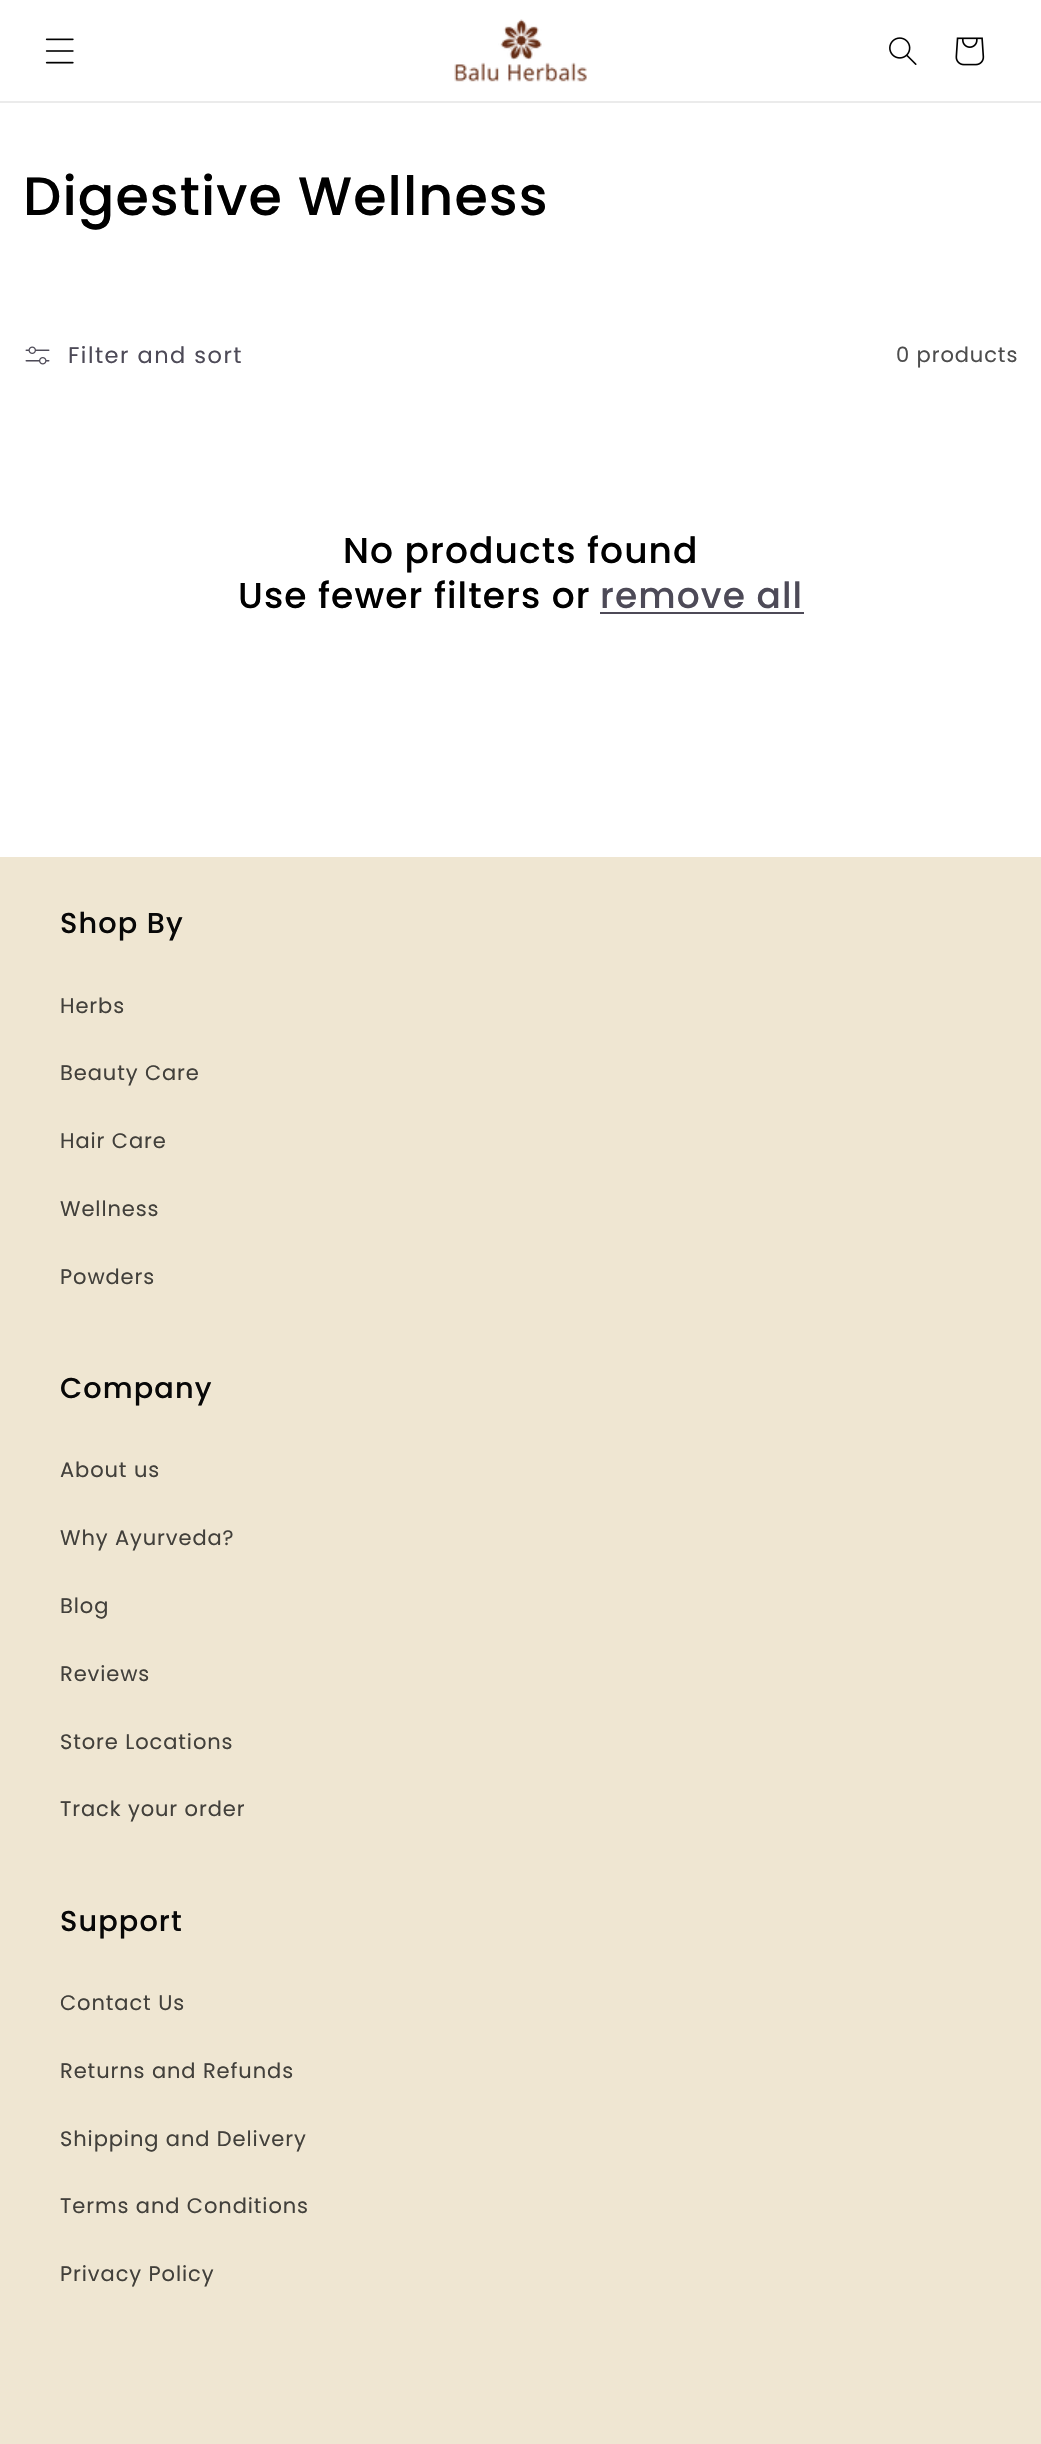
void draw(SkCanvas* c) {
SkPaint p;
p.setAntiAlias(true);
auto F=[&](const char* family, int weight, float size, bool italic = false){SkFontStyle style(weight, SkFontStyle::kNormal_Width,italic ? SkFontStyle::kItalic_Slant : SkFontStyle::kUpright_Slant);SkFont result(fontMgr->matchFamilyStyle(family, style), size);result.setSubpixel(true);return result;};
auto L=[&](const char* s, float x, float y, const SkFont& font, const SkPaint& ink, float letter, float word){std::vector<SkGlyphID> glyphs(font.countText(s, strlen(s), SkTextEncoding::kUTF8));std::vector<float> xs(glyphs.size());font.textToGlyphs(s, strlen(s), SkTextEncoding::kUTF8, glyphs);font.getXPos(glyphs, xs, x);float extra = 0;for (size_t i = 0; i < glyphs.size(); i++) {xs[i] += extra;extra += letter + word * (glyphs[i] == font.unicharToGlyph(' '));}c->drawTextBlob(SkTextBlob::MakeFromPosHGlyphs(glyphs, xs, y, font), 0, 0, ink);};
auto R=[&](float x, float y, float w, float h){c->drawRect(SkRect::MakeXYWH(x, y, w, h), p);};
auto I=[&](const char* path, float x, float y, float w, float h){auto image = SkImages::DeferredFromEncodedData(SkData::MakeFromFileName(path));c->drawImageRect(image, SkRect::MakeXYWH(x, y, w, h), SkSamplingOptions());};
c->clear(0xffffffff);
p.setColor(0xffebebeb);
R(0,101,1041,2);
I("1.png",45,38,29,26);
I("2.png",454,19,133,63);
I("3.png",889,37,28,28);
I("4.png",955,37,30,29);
auto f1 = F("Poppins",500,54);
p.setColor(0xff000000);
L("Digestive Wellness",23,215,f1,p,1.1,0);
I("5.png",25,346,25,19);
auto f2 = F("Poppins",400,22.5);
p.setColor(0xff4d4a57);
L("Filter and sort",68,363,f2,p,1.5,0);
auto f3 = F("Poppins",400,21);
p.setColor(0xff4d4d4d);
L("0 products",896,362,f3,p,.9,0);
auto f4 = F("Poppins",500,36);
p.setColor(0xff000000);
L("No products found",343,563,f4,p,1.1,0);
L("Use fewer filters or",238,608,f4,p,1.1,0);
p.setColor(0xff4d4a57);
L("remove all",600,608,f4,p,1.1,0);
R(600,612,204,2);
p.setColor(0xffefe6d2);
R(0,857,1041,1587);
auto f5 = F("Poppins",500,28.75);
p.setColor(0xff080808);
L("Shop By",60,933,f5,p,1.1,0);
p.setColor(0xff42403b);
L("Herbs",60,1013,f3,p,.9,0);
L("Beauty Care",60,1080,f3,p,.9,0);
L("Hair Care",60,1148,f3,p,.9,0);
L("Wellness",60,1216,f3,p,.9,0);
L("Powders",60,1284,f3,p,.9,0);
p.setColor(0xff080808);
L("Company",60,1398,f5,p,1.1,0);
p.setColor(0xff42403b);
L("About us",60,1477,f3,p,.9,0);
L("Why Ayurveda?",60,1545,f3,p,.9,0);
L("Blog",60,1613,f3,p,.9,0);
L("Reviews",60,1681,f3,p,.9,0);
L("Store Locations",60,1749,f3,p,.9,0);
L("Track your order",60,1816,f3,p,.9,0);
p.setColor(0xff080808);
L("Support",60,1931,f5,p,1.1,0);
p.setColor(0xff42403b);
L("Contact Us",60,2010,f3,p,.9,0);
L("Returns and Refunds",60,2078,f3,p,.9,0);
L("Shipping and Delivery",60,2146,f3,p,.9,0);
L("Terms and Conditions",60,2213,f3,p,.9,0);
L("Privacy Policy",60,2281,f3,p,.9,0);
}
